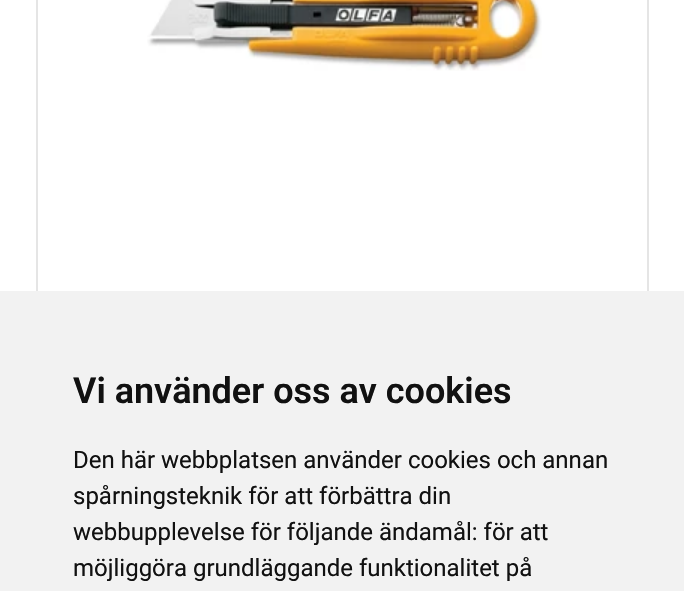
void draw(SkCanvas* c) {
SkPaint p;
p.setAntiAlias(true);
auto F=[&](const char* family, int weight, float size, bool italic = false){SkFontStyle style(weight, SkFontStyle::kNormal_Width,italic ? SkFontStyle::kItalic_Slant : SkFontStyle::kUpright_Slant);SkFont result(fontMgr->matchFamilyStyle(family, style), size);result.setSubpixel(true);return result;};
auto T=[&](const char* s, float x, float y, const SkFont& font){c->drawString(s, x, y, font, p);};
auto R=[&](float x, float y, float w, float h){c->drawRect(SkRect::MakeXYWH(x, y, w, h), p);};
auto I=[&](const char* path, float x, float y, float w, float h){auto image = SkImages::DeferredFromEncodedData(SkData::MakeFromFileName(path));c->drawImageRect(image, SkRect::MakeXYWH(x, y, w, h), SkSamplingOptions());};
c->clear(0xffffffff);
p.setColor(0xffe5e5e5);
R(36,0,2,291);
R(647,0,2,291);
I("1.png",147,0,395,71);
p.setColor(0xfff2f2f2);
R(0,291,684,300);
auto f1 = F("Roboto",600,36);
p.setColor(0xff111111);
T("Vi använder oss av cookies",73,403,f1);
auto f2 = F("Roboto",400,24);
T("Den här webbplatsen använder cookies och annan",73,468,f2);
T("spårningsteknik för att förbättra din",73,504,f2);
T("webbupplevelse för följande ändamål: för att",73,540,f2);
T("möjliggöra grundläggande funktionalitet på",73,576,f2);
}
